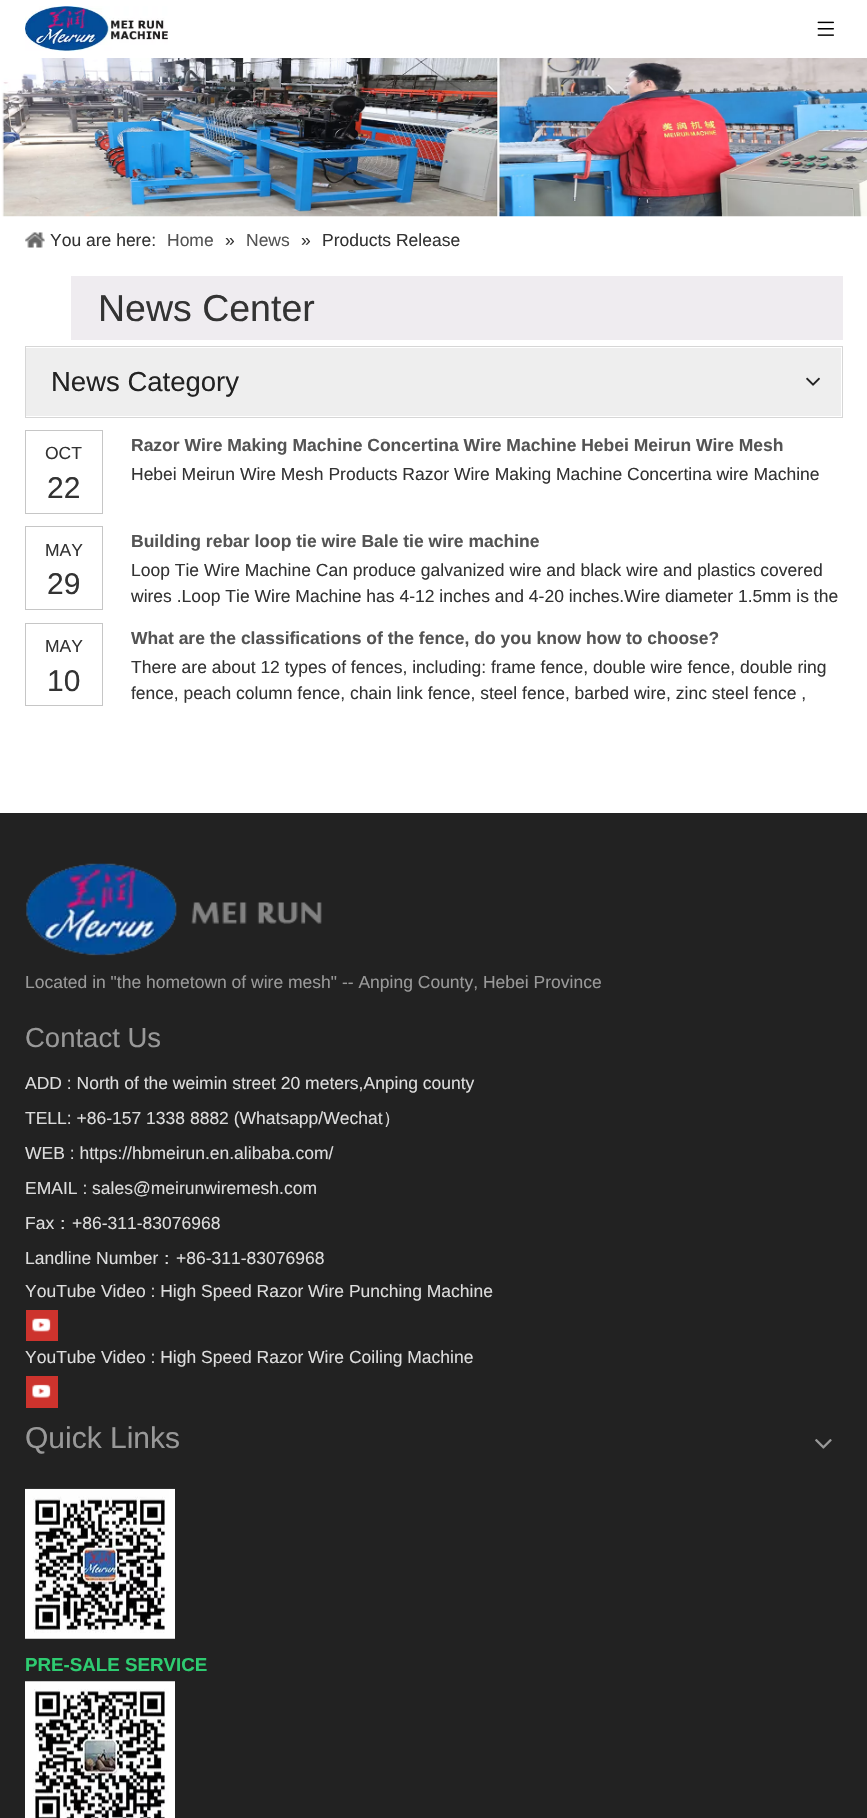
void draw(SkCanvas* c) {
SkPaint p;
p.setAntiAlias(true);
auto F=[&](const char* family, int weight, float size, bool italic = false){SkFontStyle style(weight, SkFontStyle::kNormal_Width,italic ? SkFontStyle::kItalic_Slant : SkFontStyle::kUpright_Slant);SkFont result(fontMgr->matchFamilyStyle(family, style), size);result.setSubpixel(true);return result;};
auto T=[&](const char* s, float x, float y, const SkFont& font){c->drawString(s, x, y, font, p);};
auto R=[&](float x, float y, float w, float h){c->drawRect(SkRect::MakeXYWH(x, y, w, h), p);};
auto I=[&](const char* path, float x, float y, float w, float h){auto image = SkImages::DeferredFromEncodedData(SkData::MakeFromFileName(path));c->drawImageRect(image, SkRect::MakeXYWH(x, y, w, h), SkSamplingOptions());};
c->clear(0xffffffff);
I("1.png",25,6,143,46);
I("2.png",817,21,17,15);
I("3.png",1,58,866,159);
I("4.png",25,232,20,16);
auto f1 = F("Liberation Sans",400,17.5);
p.setColor(0xff333333);
T("You are here:",50,246,f1);
p.setColor(0xff545454);
T("Home",167,246,f1);
p.setColor(0xff333333);
T("»",225,246,f1);
p.setColor(0xff545454);
T("News",246,246,f1);
p.setColor(0xff333333);
T("»",301,246,f1);
T("Products Release",322,246,f1);
p.setColor(0xffefecf0);
R(71,276,772,64);
auto f2 = F("Liberation Sans",400,37.5);
p.setColor(0xff333333);
T("News Center",98,321,f2);
p.setStroke(true);
p.setStrokeWidth(1);
p.setColor(0xffd6d6d6);
c->drawRect(SkRect::MakeXYWH(25.5,346.5,817,71),p);
p.setStroke(false);
p.setColor(0xffeeeeee);
R(26,348,815,68);
auto f3 = F("Liberation Sans",400,27.5);
p.setColor(0xff222222);
T("News Category",51,391,f3);
I("5.png",806,377,14,9);
p.setStroke(true);
p.setColor(0xffc6c6c6);
c->drawRect(SkRect::MakeXYWH(25.5,430.5,77,83),p);
p.setStroke(false);
p.setColor(0xff333333);
T("OCT",45,459,f1);
auto f4 = F("Liberation Sans",400,30);
T("22",47,498,f4);
auto f5 = F("Liberation Sans",700,17.5);
p.setColor(0xff545454);
T("Razor Wire Making Machine Concertina Wire Machine Hebei Meirun Wire Mesh",131,451,f5);
p.setColor(0xff333333);
T("Hebei Meirun Wire Mesh Products Razor Wire Making Machine Concertina wire Machine",131,480,f1);
p.setStroke(true);
p.setColor(0xffc6c6c6);
c->drawRect(SkRect::MakeXYWH(25.5,526.5,77,83),p);
p.setStroke(false);
p.setColor(0xff333333);
T("MAY",45,556,f1);
T("29",47,594,f4);
p.setColor(0xff545454);
T("Building rebar loop tie wire Bale tie wire machine",131,547,f5);
p.setColor(0xff333333);
T("Loop Tie Wire Machine Can produce galvanized wire and black wire and plastics covered",131,576,f1);
T("wires .Loop Tie Wire Machine has 4-12 inches and 4-20 inches.Wire diameter 1.5mm is the",131,602,f1);
p.setStroke(true);
p.setColor(0xffc6c6c6);
c->drawRect(SkRect::MakeXYWH(25.5,623.5,77,82),p);
p.setStroke(false);
p.setColor(0xff333333);
T("MAY",45,652,f1);
T("10",47,691,f4);
p.setColor(0xff545454);
T("What are the classifications of the fence, do you know how to choose?",131,644,f5);
p.setColor(0xff333333);
T("There are about 12 types of fences, including: frame fence, double wire fence, double ring",131,673,f1);
T("fence, peach column fence, chain link fence, steel fence, barbed wire, zinc steel fence ,",131,699,f1);
p.setColor(0xff222222);
R(0,813,867,1005);
I("6.png",26,863,296,93);
p.setColor(0xff999999);
T("Located in \"the hometown of wire mesh\" -- Anping County, Hebei Province",25,988,f1);
T("Contact Us",25,1047,f3);
p.setColor(0xffdddddd);
T("ADD : North of the weimin street 20 meters,Anping county",25,1089,f1);
T("TELL: +86-157 1338 8882 (Whatsapp/Wechat",25,1124,f1);
auto f6 = F("WenQuanYi Zen Hei",500,17.5);
T("）",383,1124,f6);
T("WEB : https://hbmeirun.en.alibaba.com/",25,1159,f1);
T("EMAIL : sales@meirunwiremesh.com",25,1194,f1);
T("Fax",25,1229,f1);
T("：",54,1229,f6);
T("+86-311-83076968",72,1229,f1);
T("Landline Number",25,1264,f1);
T("：",158,1264,f6);
T("+86-311-83076968",176,1264,f1);
T("YouTube Video : High Speed Razor Wire Punching Machine",25,1297,f1);
p.setColor(0xffcd332d);
R(26,1310,32,31);
I("7.png",32,1318,19,14);
p.setColor(0xffdddddd);
T("YouTube Video : High Speed Razor Wire Coiling Machine",25,1363,f1);
p.setColor(0xffcd332d);
R(26,1376,32,32);
I("8.png",32,1384,19,14);
p.setColor(0xff999999);
T("Quick Links",25,1448,f4);
I("9.png",815,1439,17,10);
I("10.png",25,1488,150,151);
auto f7 = F("Liberation Sans",700,18.75);
p.setColor(0xff2ecc71);
T("PRE-SALE SERVICE",25,1671,f7);
I("11.png",25,1681,150,137);
}
